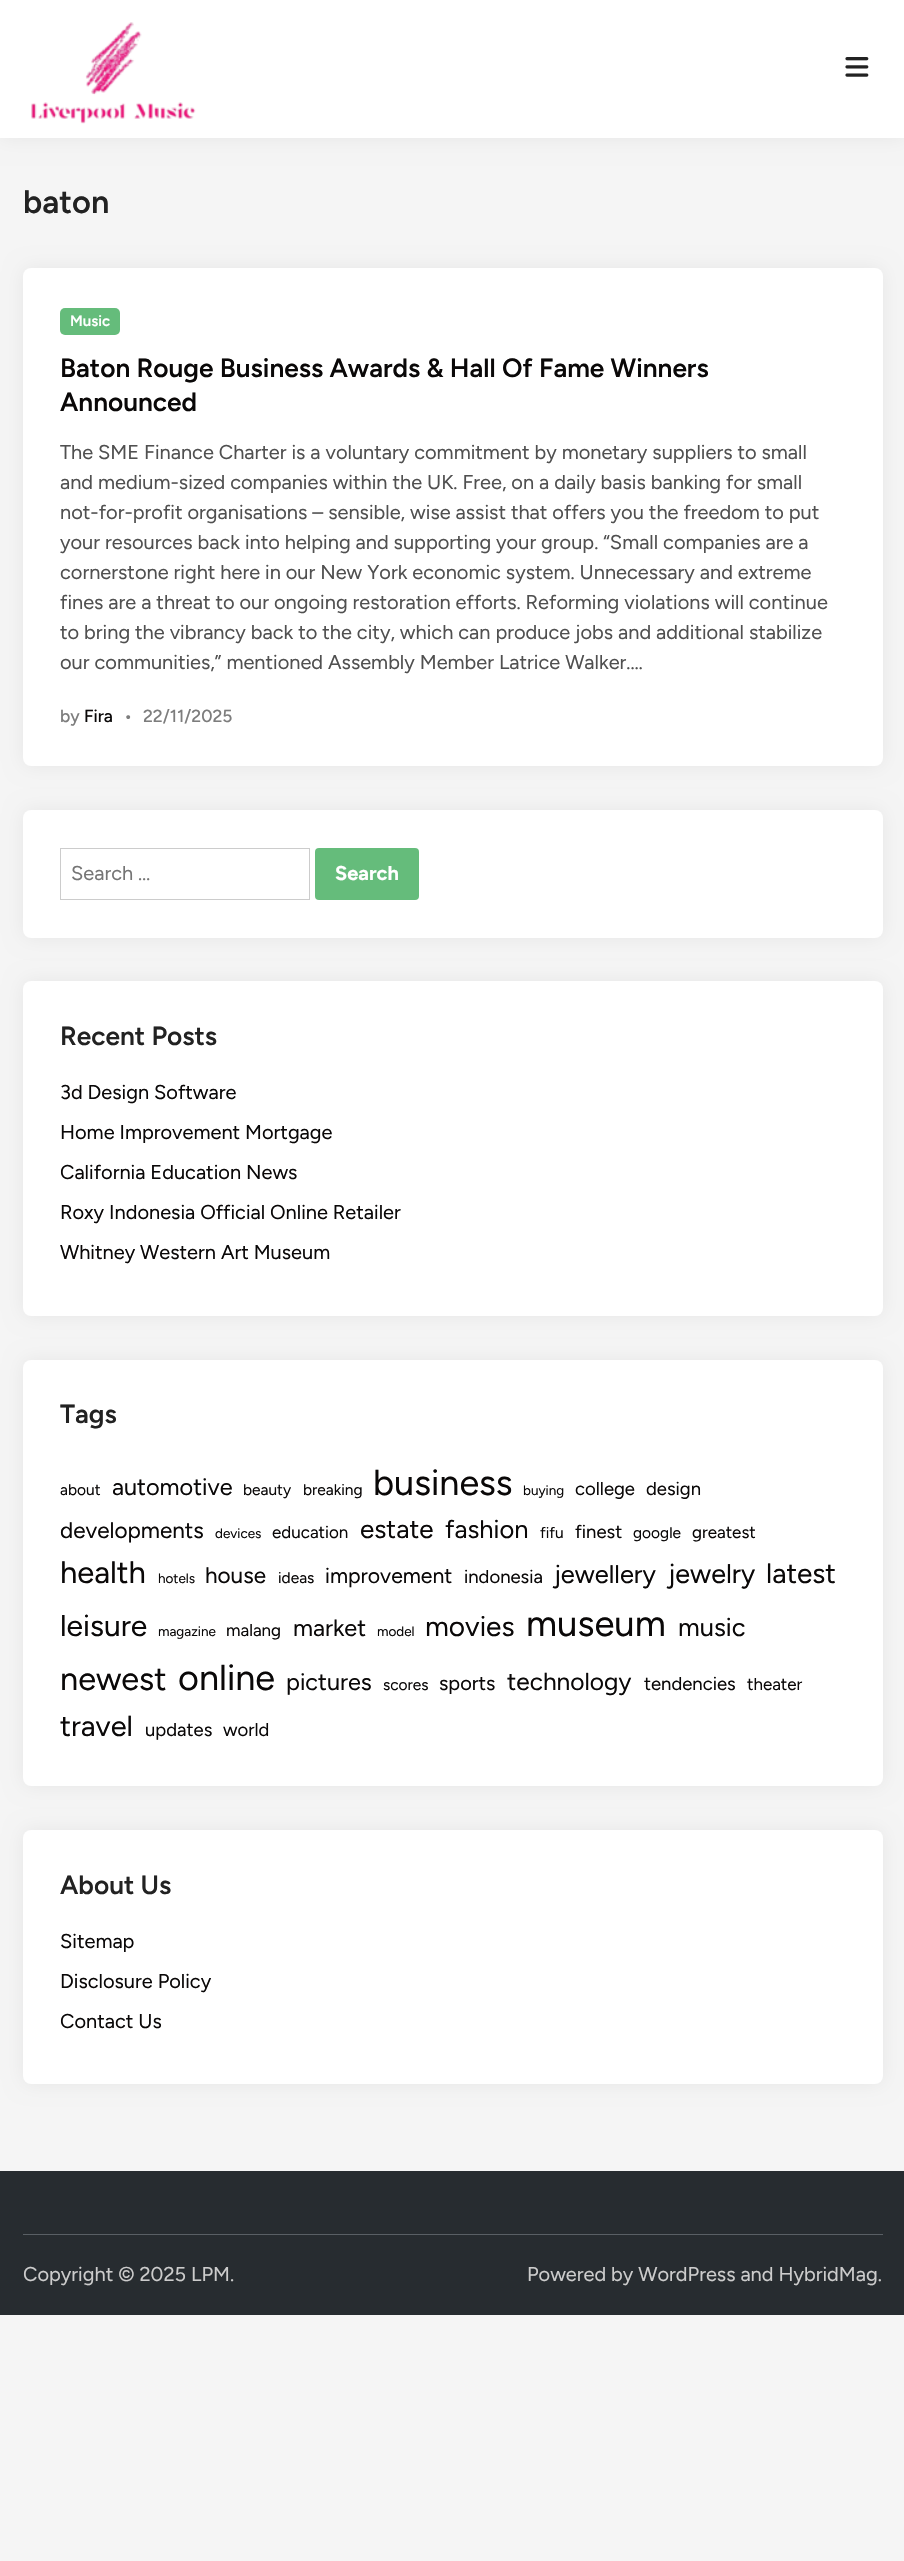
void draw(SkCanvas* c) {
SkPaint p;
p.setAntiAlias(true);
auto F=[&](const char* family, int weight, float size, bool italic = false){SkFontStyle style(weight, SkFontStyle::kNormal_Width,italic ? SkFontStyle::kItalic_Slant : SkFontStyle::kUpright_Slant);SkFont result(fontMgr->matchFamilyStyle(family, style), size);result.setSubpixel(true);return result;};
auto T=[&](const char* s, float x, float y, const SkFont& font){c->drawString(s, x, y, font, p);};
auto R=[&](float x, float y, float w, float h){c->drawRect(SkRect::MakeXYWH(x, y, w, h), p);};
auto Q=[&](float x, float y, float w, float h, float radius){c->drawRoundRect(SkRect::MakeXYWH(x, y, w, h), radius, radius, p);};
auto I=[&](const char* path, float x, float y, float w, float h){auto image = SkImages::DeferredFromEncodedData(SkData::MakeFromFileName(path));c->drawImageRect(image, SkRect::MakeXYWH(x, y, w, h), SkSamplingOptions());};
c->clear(0xfff5f5f5);
p.setColor(0x0f000000);
p.setMaskFilter(SkMaskFilter::MakeBlur(kNormal_SkBlurStyle, 9.5));
c->drawRect(SkRect::MakeXYWH(0,0,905,138),p);
p.setMaskFilter(nullptr);
p.setColor(0xffffffff);
R(0,0,904,138);
I("1.png",31,22,165,102);
I("2.png",845,57,24,20);
auto f1 = F("Figtree",600,32.5);
p.setColor(0xff222222);
T("baton",23,213,f1);
p.setColor(0x0f000000);
p.setMaskFilter(SkMaskFilter::MakeBlur(kNormal_SkBlurStyle, 9.5));
c->drawRoundRect(SkRect::MakeXYWH(23,268,860,498),8,8,p);
p.setMaskFilter(nullptr);
p.setColor(0xffffffff);
Q(23,268,860,498,8);
p.setColor(0xff65bc7b);
Q(60,308,60,27,5);
auto f2 = F("Figtree",600,15);
p.setColor(0xffffffff);
T("Music",70,326,f2);
auto f3 = F("Figtree",600,26.25);
p.setColor(0xff0a0808);
T("Baton Rouge Business Awards & Hall Of Fame Winners",60,377,f3);
T("Announced",60,411,f3);
auto f4 = F("Figtree",400,20);
p.setColor(0xff505050);
T("The SME Finance Charter is a voluntary commitment by monetary suppliers to small",60,459,f4);
T("and medium-sized companies within the UK. Free, on a daily basis banking for small",60,489,f4);
T("not-for-profit organisations – sensible, wise assist that offers you the freedom to put",60,519,f4);
T("your resources back into helping and supporting your group. “Small companies are a",60,549,f4);
T("cornerstone right here in our New York economic system. Unnecessary and extreme",60,579,f4);
T("fines are a threat to our ongoing restoration efforts. Reforming violations will continue",60,609,f4);
T("to bring the vibrancy back to the city, which can produce jobs and additional stabilize",60,639,f4);
T("our communities,” mentioned Assembly Member Latrice Walker.…",60,669,f4);
auto f5 = F("Figtree",500,17.5);
p.setColor(0xff7d7d7d);
T("by",60,722,f5);
p.setColor(0xff0a0808);
T("Fira",84,722,f5);
p.setColor(0xff7d7d7d);
T("•",124,722,f5);
T("22/11/2025",143,722,f5);
p.setColor(0x0f000000);
p.setMaskFilter(SkMaskFilter::MakeBlur(kNormal_SkBlurStyle, 9.5));
c->drawRoundRect(SkRect::MakeXYWH(23,810,860,128),8,8,p);
p.setMaskFilter(nullptr);
p.setColor(0xffffffff);
Q(23,810,860,128,8);
p.setStroke(true);
p.setStrokeWidth(1);
p.setColor(0xffcccccc);
c->drawRect(SkRect::MakeXYWH(60.5,848.5,249,51),p);
p.setStroke(false);
p.setColor(0xff757575);
T("Search …",71,880,f4);
p.setColor(0xff65bc7b);
Q(315,848,104,52,4);
auto f6 = F("Figtree",700,20);
p.setColor(0xffffffff);
T("Search",335,880,f6);
p.setColor(0x0f000000);
p.setMaskFilter(SkMaskFilter::MakeBlur(kNormal_SkBlurStyle, 9.5));
c->drawRoundRect(SkRect::MakeXYWH(23,981,860,335),8,8,p);
p.setMaskFilter(nullptr);
p.setColor(0xffffffff);
Q(23,981,860,335,8);
p.setColor(0xff222222);
T("Recent Posts",60,1045,f3);
p.setColor(0xff0a0808);
T("3d Design Software",60,1099,f4);
T("Home Improvement Mortgage",60,1139,f4);
T("California Education News",60,1179,f4);
T("Roxy Indonesia Official Online Retailer",60,1219,f4);
T("Whitney Western Art Museum",60,1259,f4);
p.setColor(0x0f000000);
p.setMaskFilter(SkMaskFilter::MakeBlur(kNormal_SkBlurStyle, 9.5));
c->drawRoundRect(SkRect::MakeXYWH(23,1360,860,426),8,8,p);
p.setMaskFilter(nullptr);
p.setColor(0xffffffff);
Q(23,1360,860,426,8);
p.setColor(0xff222222);
T("Tags",60,1423,f3);
auto f7 = F("Figtree",400,15.5);
p.setColor(0xff0a0808);
T("about",60,1495,f7);
auto f8 = F("Figtree",400,23.5);
T("automotive",112,1495,f8);
T("beauty",243,1495,f7);
T("breaking",303,1495,f7);
auto f9 = F("Figtree",400,36);
T("business",373,1495,f9);
auto f10 = F("Figtree",400,13.5);
T("buying",523,1495,f10);
auto f11 = F("Figtree",400,18.5);
T("college",575,1495,f11);
T("design",646,1495,f11);
auto f12 = F("Figtree",400,22.5);
T("developments",60,1538,f12);
T("devices",215,1538,f10);
auto f13 = F("Figtree",400,17);
T("education",272,1538,f13);
auto f14 = F("Figtree",400,26);
T("estate",360,1538,f14);
auto f15 = F("Figtree",400,25.5);
T("fashion",445,1538,f15);
T("fifu",540,1538,f7);
T("finest",575,1538,f11);
T("google",633,1538,f7);
T("greatest",692,1538,f13);
auto f16 = F("Figtree",400,31);
T("health",60,1583,f16);
T("hotels",158,1583,f10);
T("house",205,1583,f12);
T("ideas",278,1583,f7);
auto f17 = F("Figtree",400,21.25);
T("improvement",325,1583,f17);
T("indonesia",464,1583,f11);
T("jewellery",554,1583,f15);
auto f18 = F("Figtree",400,27);
T("jewelry",668,1583,f18);
auto f19 = F("Figtree",400,28);
T("latest",766,1583,f19);
auto f20 = F("Figtree",400,30);
T("leisure",60,1636,f20);
T("magazine",158,1636,f10);
T("malang",226,1636,f13);
T("market",293,1636,f8);
T("model",377,1636,f10);
T("movies",425,1636,f19);
auto f21 = F("Figtree",400,36.5);
T("museum",526,1636,f21);
T("music",678,1636,f15);
auto f22 = F("Figtree",400,32.5);
T("newest",60,1690,f22);
T("online",178,1690,f9);
T("pictures",286,1690,f8);
T("scores",383,1690,f7);
T("sports",439,1690,f4);
auto f23 = F("Figtree",400,24.5);
T("technology",507,1690,f23);
T("tendencies",644,1690,f11);
T("theater",747,1690,f13);
auto f24 = F("Figtree",400,29);
T("travel",60,1736,f24);
T("updates",145,1736,f11);
T("world",223,1736,f11);
p.setColor(0x0f000000);
p.setMaskFilter(SkMaskFilter::MakeBlur(kNormal_SkBlurStyle, 9.5));
c->drawRoundRect(SkRect::MakeXYWH(23,1830,860,254),8,8,p);
p.setMaskFilter(nullptr);
p.setColor(0xffffffff);
Q(23,1830,860,254,8);
p.setColor(0xff222222);
T("About Us",60,1894,f3);
p.setColor(0xff0a0808);
T("Sitemap",60,1948,f4);
T("Disclosure Policy",60,1988,f4);
T("Contact Us",60,2028,f4);
p.setColor(0xff272c30);
R(0,2171,904,144);
p.setColor(0xff595f64);
R(23,2234,860,1);
p.setColor(0xffcccccc);
T("Copyright © 2025 LPM.",23,2281,f4);
T("Powered by WordPress and HybridMag.",527,2281,f4);
}
